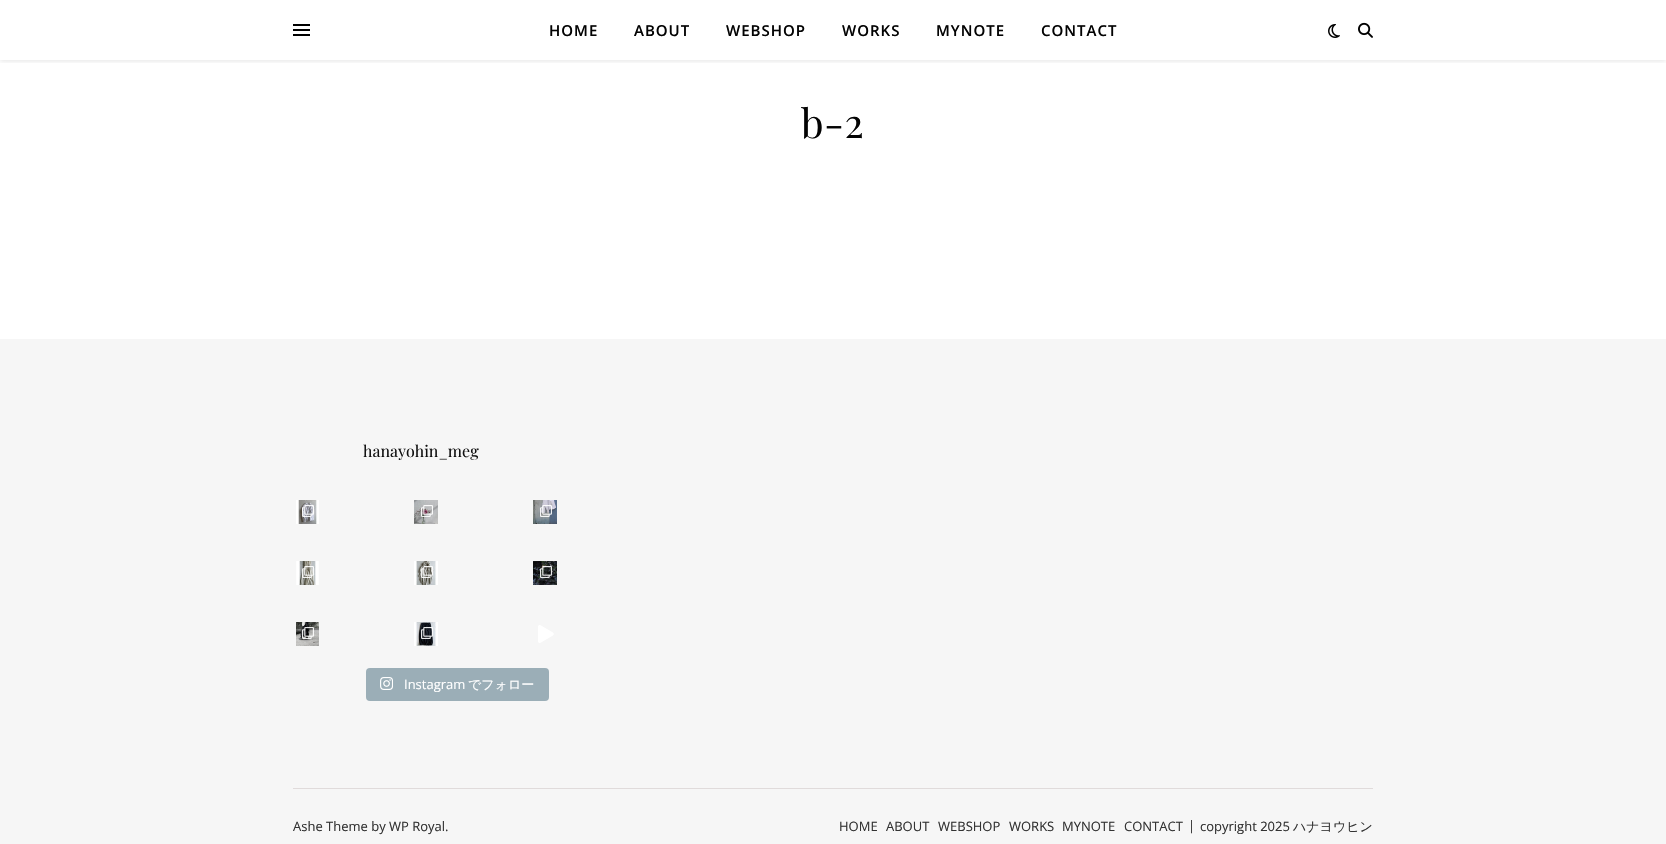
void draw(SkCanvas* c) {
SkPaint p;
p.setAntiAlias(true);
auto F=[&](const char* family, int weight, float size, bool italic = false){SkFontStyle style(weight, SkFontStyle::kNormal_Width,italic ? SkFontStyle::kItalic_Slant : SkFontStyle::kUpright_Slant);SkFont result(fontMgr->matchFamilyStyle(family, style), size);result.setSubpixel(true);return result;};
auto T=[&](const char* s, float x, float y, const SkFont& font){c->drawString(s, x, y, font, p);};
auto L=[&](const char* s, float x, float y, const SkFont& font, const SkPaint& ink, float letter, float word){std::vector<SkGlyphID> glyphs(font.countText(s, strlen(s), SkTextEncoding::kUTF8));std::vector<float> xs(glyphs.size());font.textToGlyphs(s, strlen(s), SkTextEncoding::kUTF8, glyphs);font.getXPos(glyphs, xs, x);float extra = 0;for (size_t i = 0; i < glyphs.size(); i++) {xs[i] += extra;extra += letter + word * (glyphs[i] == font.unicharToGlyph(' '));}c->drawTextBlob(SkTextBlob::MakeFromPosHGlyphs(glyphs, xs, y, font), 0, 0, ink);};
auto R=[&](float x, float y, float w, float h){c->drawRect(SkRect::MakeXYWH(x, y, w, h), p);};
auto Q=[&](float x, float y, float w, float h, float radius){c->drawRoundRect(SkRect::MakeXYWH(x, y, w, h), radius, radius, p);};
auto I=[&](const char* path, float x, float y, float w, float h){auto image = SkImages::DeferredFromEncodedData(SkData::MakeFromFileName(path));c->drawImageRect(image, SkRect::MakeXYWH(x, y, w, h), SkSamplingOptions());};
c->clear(0xffffffff);
c->save();
c->clipRect(SkRect::MakeXYWH(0,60,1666,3));
p.setColor(0x1a000000);
p.setMaskFilter(SkMaskFilter::MakeBlur(kNormal_SkBlurStyle, 2.5));
c->drawRect(SkRect::MakeXYWH(0,1,1666,60),p);
p.setMaskFilter(nullptr);
c->restore();
p.setColor(0xff000000);
R(293,24,17,2);
R(293,29,17,2);
R(293,34,17,2);
auto f1 = F("Open Sans",600,15);
p.setColor(0xff030303);
L("HOME",549,36,f1,p,1,0);
L("ABOUT",634,36,f1,p,1,0);
L("WEBSHOP",726,36,f1,p,1,0);
L("WORKS",842,36,f1,p,1,0);
L("MYNOTE",936,36,f1,p,1,0);
L("CONTACT",1041,36,f1,p,1,0);
I("1.png",1328,24,12,14);
I("2.png",1358,22,15,16);
auto f2 = F("Playfair Display",400,40);
L("b-2",801,138,f2,p,.5,0);
p.setColor(0xfff6f6f6);
R(0,339,1666,505);
p.setColor(0xffe0dbdb);
R(293,788,1080,1);
auto f3 = F("Playfair Display",400,16);
p.setColor(0xff111111);
T("hanayohin_meg",363,457,f3);
I("3.png",296,500,23,24);
I("4.png",302,505,12,12);
I("5.png",414,500,24,24);
I("6.png",421,505,12,12);
I("7.png",533,500,24,24);
I("8.png",540,505,12,12);
I("9.png",296,561,23,24);
I("10.png",302,566,12,12);
I("11.png",414,561,24,24);
I("12.png",421,566,12,12);
I("13.png",533,561,24,24);
I("14.png",540,566,12,12);
I("15.png",296,622,23,24);
I("16.png",302,627,12,12);
I("17.png",414,622,24,24);
I("18.png",421,627,12,12);
I("19.png",538,625,16,18);
p.setColor(0xff9baeb7);
Q(366,668,183,33,4);
I("20.png",380,677,13,13);
auto f4 = F("Open Sans",400,13);
p.setColor(0xffffffff);
T("Instagram",404,689,f4);
auto f5 = F("WenQuanYi Zen Hei",500,13);
T("でフォロー",468,689,f5);
p.setColor(0xff333333);
T("Ashe Theme by WP Royal.",293,831,f4);
T("HOME",839,831,f4);
T("ABOUT",886,831,f4);
T("WEBSHOP",938,831,f4);
T("WORKS",1009,831,f4);
T("MYNOTE",1062,831,f4);
T("CONTACT",1124,831,f4);
T("|",1188,830,f4);
T("copyright 2025",1200,831,f4);
T("ハナヨウヒン",1293,831,f5);
}
